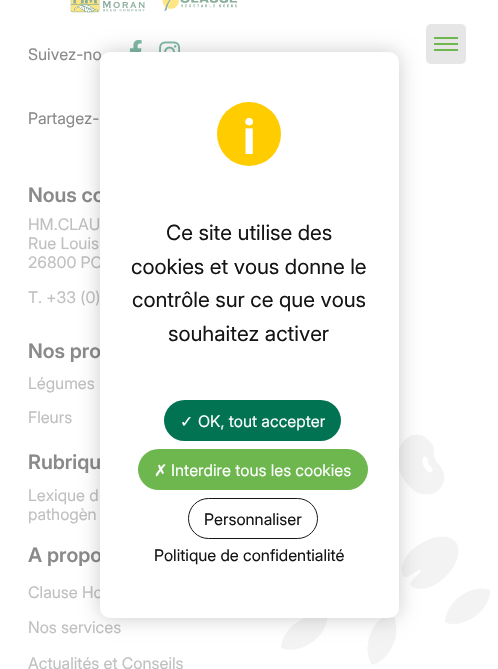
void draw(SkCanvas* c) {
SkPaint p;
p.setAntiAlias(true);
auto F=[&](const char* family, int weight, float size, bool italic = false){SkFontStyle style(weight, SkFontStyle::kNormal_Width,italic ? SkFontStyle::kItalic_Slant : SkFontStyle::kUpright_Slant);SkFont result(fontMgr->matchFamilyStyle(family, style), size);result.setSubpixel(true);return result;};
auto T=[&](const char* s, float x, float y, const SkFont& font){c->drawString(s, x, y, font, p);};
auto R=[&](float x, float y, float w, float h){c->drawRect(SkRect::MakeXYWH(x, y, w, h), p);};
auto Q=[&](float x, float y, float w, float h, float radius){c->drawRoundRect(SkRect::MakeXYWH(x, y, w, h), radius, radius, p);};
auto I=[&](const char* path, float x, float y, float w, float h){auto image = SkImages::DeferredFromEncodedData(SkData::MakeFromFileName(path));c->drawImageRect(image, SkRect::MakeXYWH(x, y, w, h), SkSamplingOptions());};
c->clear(0xffffffff);
p.setColor(0xffe6e6e6);
Q(426,24,40,40,5);
p.setColor(0xff6db74e);
R(434,37,24,2);
R(434,43,24,2);
R(434,49,24,2);
I("1.png",281,434,210,231);
I("2.png",70,0,168,13);
I("3.png",129,40,13,12);
I("4.png",159,41,22,11);
auto f1 = F("Inter",400,16);
p.setColor(0xff8a8a8a);
T("Suivez-no",28,60,f1);
T("Partagez-",28,124,f1);
auto f2 = F("Inter",600,20);
T("Nous co",28,202,f2);
p.setColor(0xffc0c0c0);
T("HM.CLAU",28,230,f1);
T("Rue Louis",28,249,f1);
T("26800 PO",28,268,f1);
T("T. +33 (0)",28,303,f1);
p.setColor(0xff8a8a8a);
T("Nos pro",28,358,f2);
p.setColor(0xffc0c0c0);
T("Légumes",28,389,f1);
T("Fleurs",28,423,f1);
p.setColor(0xff8a8a8a);
T("Rubriqu",28,469,f2);
p.setColor(0xffc0c0c0);
T("Lexique d",28,501,f1);
T("pathogèn",28,520,f1);
p.setColor(0xff8a8a8a);
T("A propo",28,562,f2);
p.setColor(0xffc0c0c0);
T("Clause Ho",28,598,f1);
T("Nos services",28,633,f1);
T("Actualités et Conseils",28,669,f1);
p.setColor(0x33000000);
p.setMaskFilter(SkMaskFilter::MakeBlur(kNormal_SkBlurStyle, 10));
c->drawRoundRect(SkRect::MakeXYWH(100,52,299,566),10,10,p);
p.setMaskFilter(nullptr);
p.setColor(0xffffffff);
Q(100,52,299,566,10);
p.setColor(0xffffcc00);
c->drawCircle(249,134,32,p);
auto f3 = F("Inter",700,48);
p.setColor(0xffffffff);
T("i",243,154,f3);
auto f4 = F("Inter",400,21);
p.setColor(0xff151515);
T("Ce site utilise des",166,240,f4);
T("cookies et vous donne le",131,274,f4);
T("contrôle sur ce que vous",132,307,f4);
T("souhaitez activer",168,341,f4);
p.setColor(0xff027352);
Q(164,400,177,41,20.5);
auto f5 = F("DejaVu Sans",400,16);
p.setColor(0xffffffff);
T("✓",180,427,f5);
T("OK, tout accepter",198,427,f1);
p.setColor(0xff6db74e);
Q(138,449,230,41,20.5);
p.setColor(0xffffffff);
T("✗",154,476,f5);
T("Interdire tous les cookies",171,476,f1);
p.setStroke(true);
p.setStrokeWidth(1);
p.setColor(0xff151515);
c->drawRoundRect(SkRect::MakeXYWH(188.5,498.5,129,40),20,20,p);
p.setStroke(false);
T("Personnaliser",204,525,f1);
T("Politique de confidentialité",154,561,f1);
}
